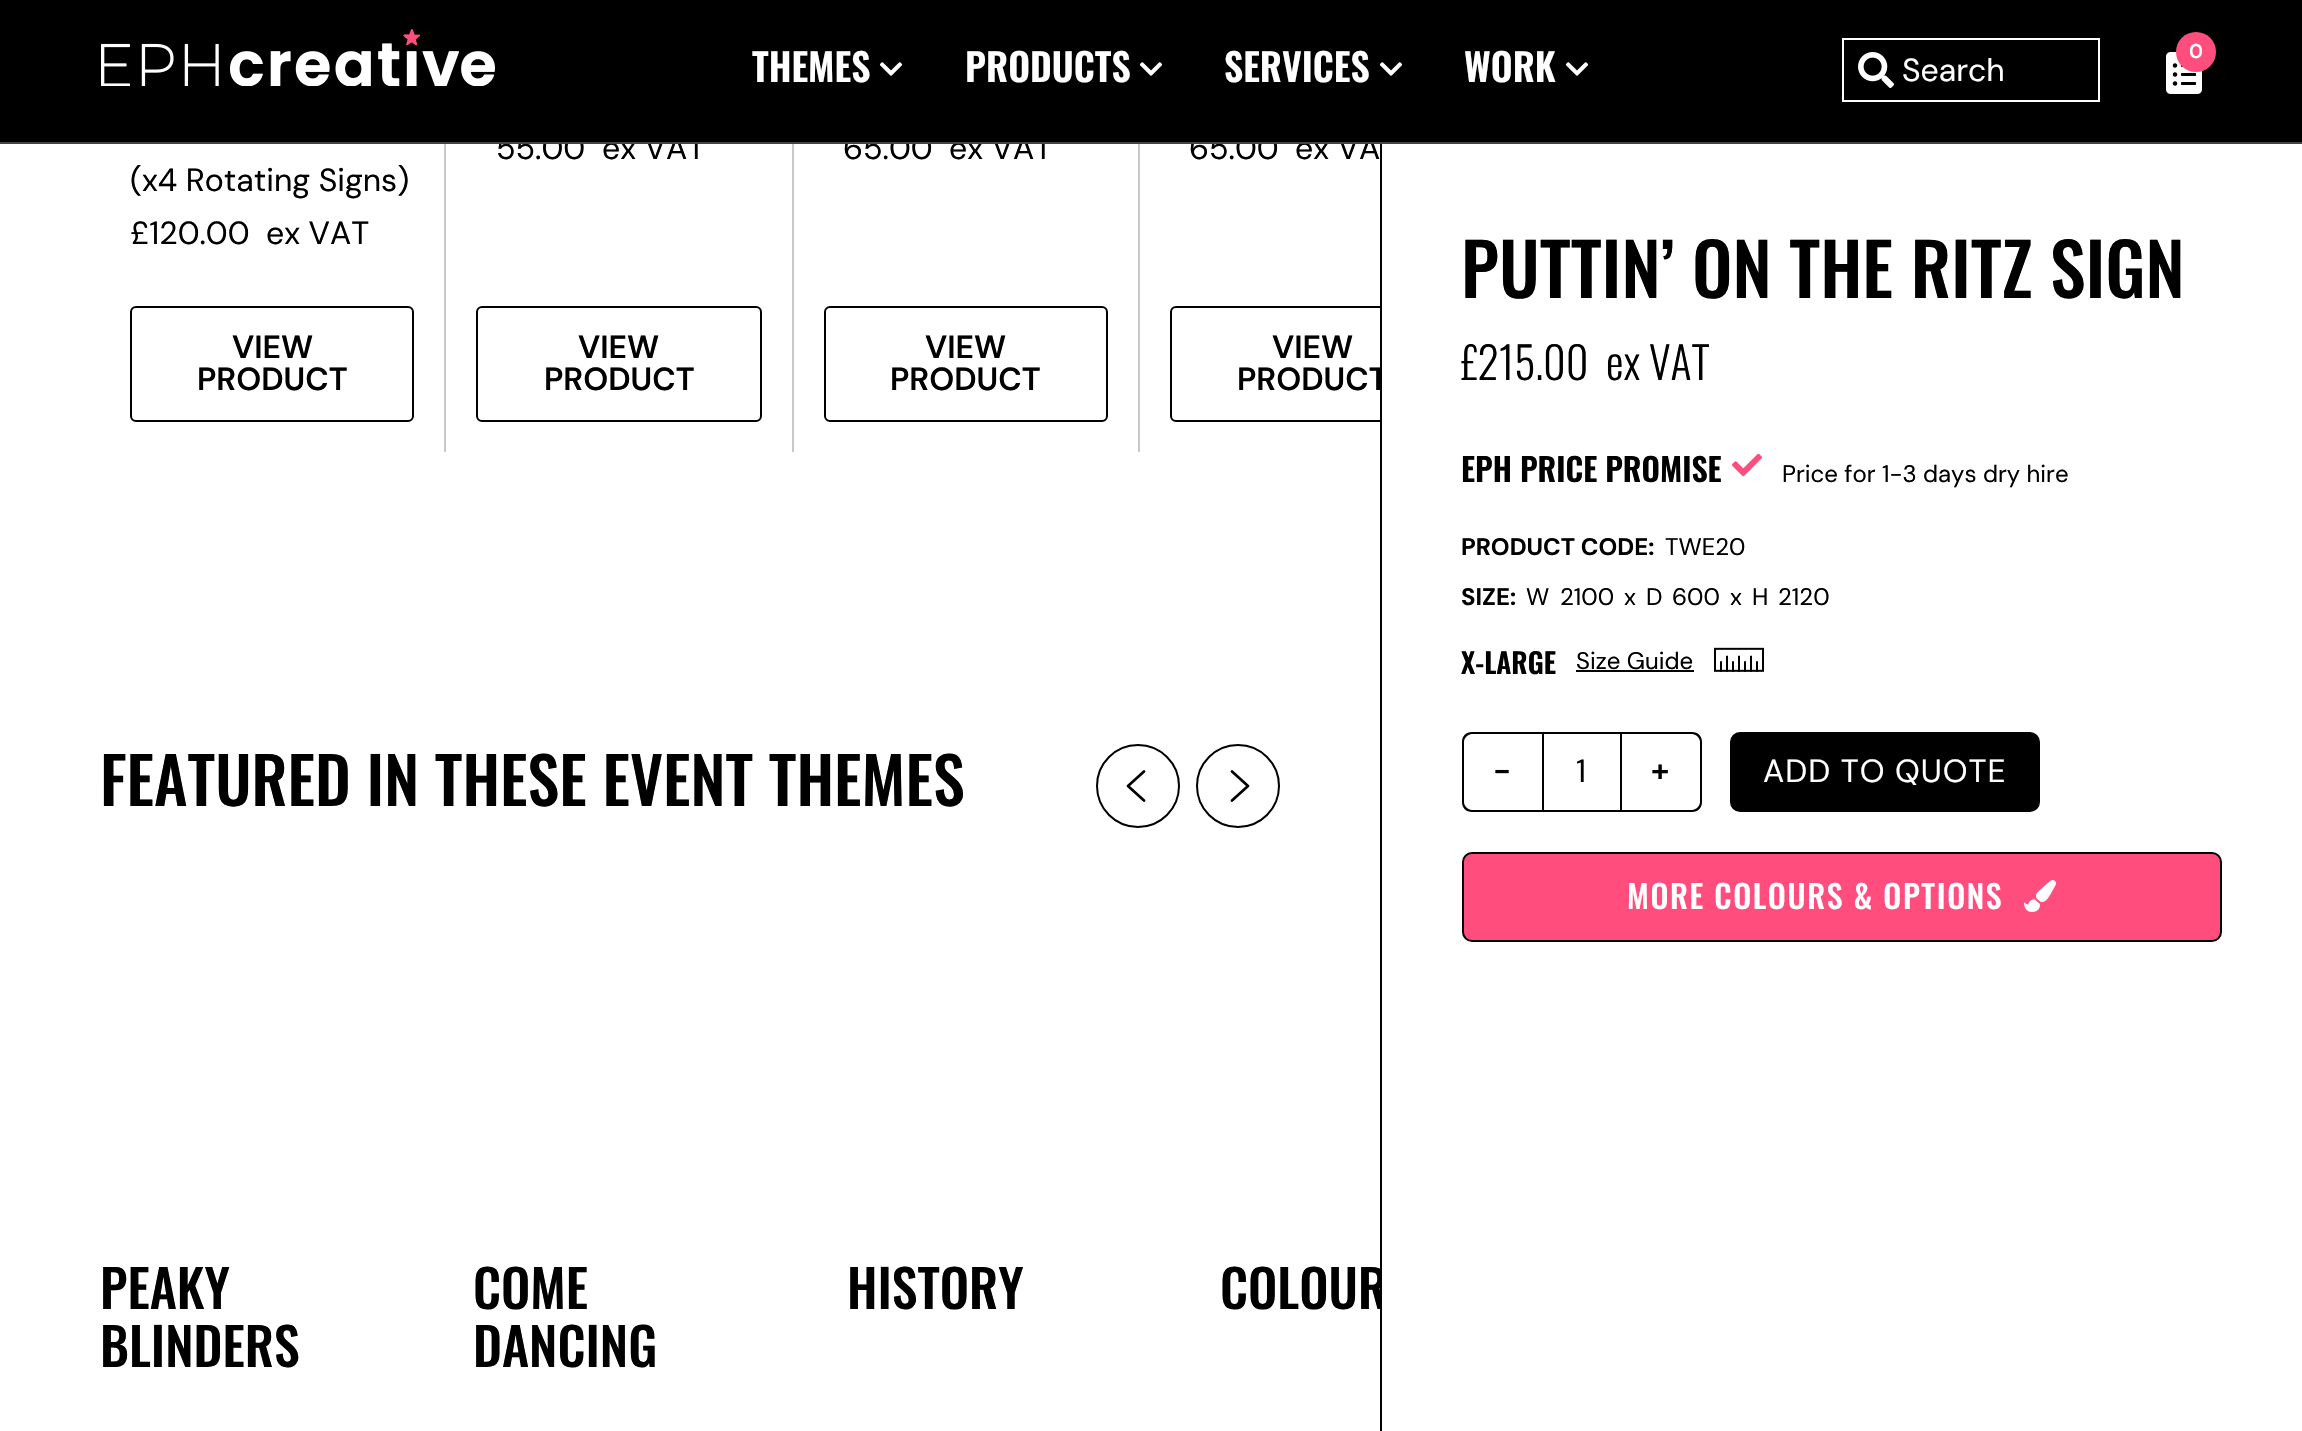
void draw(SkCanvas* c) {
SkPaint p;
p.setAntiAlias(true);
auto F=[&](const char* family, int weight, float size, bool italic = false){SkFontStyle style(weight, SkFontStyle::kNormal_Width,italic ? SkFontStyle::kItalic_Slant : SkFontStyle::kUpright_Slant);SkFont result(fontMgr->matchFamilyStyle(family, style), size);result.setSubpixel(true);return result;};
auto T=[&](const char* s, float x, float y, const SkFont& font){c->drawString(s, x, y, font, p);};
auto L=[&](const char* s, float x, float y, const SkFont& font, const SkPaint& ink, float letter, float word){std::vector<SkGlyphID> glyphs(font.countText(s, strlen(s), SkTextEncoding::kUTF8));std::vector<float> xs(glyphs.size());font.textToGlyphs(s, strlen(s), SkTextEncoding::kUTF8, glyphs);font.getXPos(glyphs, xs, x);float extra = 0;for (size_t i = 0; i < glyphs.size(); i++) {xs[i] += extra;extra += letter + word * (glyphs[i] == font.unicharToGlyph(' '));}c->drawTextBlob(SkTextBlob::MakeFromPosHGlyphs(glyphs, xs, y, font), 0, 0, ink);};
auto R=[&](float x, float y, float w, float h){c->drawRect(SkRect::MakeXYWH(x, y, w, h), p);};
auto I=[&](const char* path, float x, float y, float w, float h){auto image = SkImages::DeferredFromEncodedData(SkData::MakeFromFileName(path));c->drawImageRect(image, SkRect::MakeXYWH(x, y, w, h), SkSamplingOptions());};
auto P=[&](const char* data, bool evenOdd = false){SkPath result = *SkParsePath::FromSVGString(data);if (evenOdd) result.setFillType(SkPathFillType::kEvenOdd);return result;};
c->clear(0xffffffff);
p.setColor(0xff000000);
R(0,0,2302,142);
I("2.png",101,43,394,43);
I("1.png",403,29,17,17);
auto f1 = F("Oswald",600,38);
p.setColor(0xffffffff);
T("THEMES",752,82,f1);
I("3.png",879,62,24,14);
T("PRODUCTS",965,82,f1);
I("3.png",1139,62,24,14);
T("SERVICES",1224,82,f1);
I("3.png",1379,62,24,14);
T("WORK",1464,82,f1);
I("3.png",1565,62,24,14);
I("4.png",2166,52,36,42);
p.setColor(0xffff4e7d);
c->drawCircle(2196,52,20,p);
auto f2 = F("DM Sans",600,20);
p.setColor(0xffffffff);
T("0",2189,58,f2);
p.setStroke(true);
p.setStrokeWidth(2);
c->drawRect(SkRect::MakeXYWH(1843,39,256,62),p);
I("5.png",1858,52,36,36);
auto f3 = F("DM Sans",400,32);
p.setStroke(false);
T("Search",1902,81,f3);
p.setColor(0xff000000);
T("55.00",496,159,f3);
T("ex VAT",602,159,f3);
T("65.00",843,159,f3);
T("ex VAT",949,159,f3);
T("65.00",1189,159,f3);
T("ex VA",1295,159,f3);
p.setColor(0xff444444);
R(0,142,2302,2);
p.setColor(0xff000000);
R(1380,144,2,1287);
p.setColor(0xffcac9c9);
R(444,144,2,308);
p.setColor(0xff000000);
T("(x4 Rotating Signs)",130,191,f3);
T("£120.00",130,244,f3);
T("ex VAT",266,244,f3);
p.setStroke(true);
c->drawRoundRect(SkRect::MakeXYWH(131,307,282,114),5,5,p);
auto f4 = F("DM Sans",600,32);
p.setStroke(false);
T("VIEW",232,358,f4);
T("PRODUCT",197,390,f4);
p.setColor(0xffcac9c9);
R(792,144,2,308);
p.setStroke(true);
p.setColor(0xff000000);
c->drawRoundRect(SkRect::MakeXYWH(477,307,284,114),5,5,p);
p.setStroke(false);
T("VIEW",578,358,f4);
T("PRODUCT",544,390,f4);
p.setColor(0xffcac9c9);
R(1138,144,2,308);
p.setStroke(true);
p.setColor(0xff000000);
c->drawRoundRect(SkRect::MakeXYWH(825,307,282,114),5,5,p);
p.setStroke(false);
T("VIEW",925,358,f4);
T("PRODUCT",890,390,f4);
c->save();
c->clipRect(SkRect::MakeXYWH(100,0,1280,452));
p.setStroke(true);
c->drawRoundRect(SkRect::MakeXYWH(1171,307,282,114),5,5,p);
c->restore();
p.setStroke(false);
T("VIEW",1272,358,f4);
c->save();
c->clipRect(SkRect::MakeXYWH(100,0,1280,452));
T("PRODUCT",1237,390,f4);
c->restore();
auto f5 = F("Oswald",500,64.25);
T("FEATURED IN THESE EVENT THEMES",100,806,f5);
p.setStroke(true);
c->drawCircle(1138,786,41,p);
p.setStrokeWidth(2.7);
p.setStrokeCap(SkPaint::kRound_Cap);
p.setStrokeJoin(SkPaint::kRound_Join);
c->drawPath(P("M1144 771.5l-16 14.5l16 14.5"),p);
p.setStrokeWidth(2);
p.setStrokeCap(SkPaint::kButt_Cap);
p.setStrokeJoin(SkPaint::kMiter_Join);
c->drawCircle(1238,786,41,p);
p.setStrokeWidth(2.7);
p.setStrokeCap(SkPaint::kRound_Cap);
p.setStrokeJoin(SkPaint::kRound_Join);
c->drawPath(P("M1232 771.5l16 14.5l-16 14.5"),p);
auto f6 = F("Oswald",500,52);
p.setStroke(false);
T("PEAKY",100,1309,f6);
T("BLINDERS",100,1367,f6);
T("COME",473,1309,f6);
T("DANCING",473,1367,f6);
T("HISTORY",847,1309,f6);
c->save();
c->clipRect(SkRect::MakeXYWH(100,924,1280,488));
T("COLOUR",1220,1309,f6);
c->restore();
auto f7 = F("Oswald",500,72);
T("PUTTIN’ ON THE RITZ SIGN",1461,298,f7);
auto f8 = F("Oswald",300,44);
T("£215.00",1461,380,f8);
T("ex VAT",1606,380,f8);
auto f9 = F("Oswald",600,32);
T("EPH PRICE PROMISE",1461,482,f9);
I("6.png",1732,453,30,24);
auto f10 = F("DM Sans",400,24);
T("Price for 1-3 days dry hire",1782,482,f10);
auto f11 = F("DM Sans",700,24);
T("PRODUCT CODE:",1461,555,f11);
T("TWE20",1665,555,f10);
T("SIZE:",1461,605,f11);
T("W",1526,605,f10);
T("2100",1560,605,f10);
T("x",1624,605,f10);
T("D",1646,605,f10);
T("600",1672,605,f10);
T("x",1730,605,f10);
T("H",1752,605,f10);
T("2120",1778,605,f10);
auto f12 = F("Oswald",600,28);
T("X-LARGE",1461,674,f12);
T("Size Guide",1576,669,f10);
R(1576,670,118,2);
I("7.png",1714,647,50,25);
c->drawPath(P("M1472 732h70v80h-70c-6 0-10-4-10-10v-60c0-6 4-10 10-10zm0 2h70v76h-70c-4 0-8-4-8-8v-60c0-4 4-8 8-8z",true),p);
T("-",1493,781,f4);
p.setStroke(true);
p.setStrokeWidth(2);
p.setStrokeCap(SkPaint::kButt_Cap);
p.setStrokeJoin(SkPaint::kMiter_Join);
c->drawRect(SkRect::MakeXYWH(1543,733,78,78),p);
p.setStroke(false);
T("1",1576,782,f3);
c->drawPath(P("M1622 732h70c6 0 10 4 10 10v60c0 6-4 10-10 10h-70zm0 2h70c4 0 8 4 8 8v60c0 4-4 8-8 8h-70z",true),p);
T("+",1651,781,f4);
c->drawRoundRect(SkRect::MakeXYWH(1731,733,308,78),9,9,p);
p.setStroke(true);
c->drawRoundRect(SkRect::MakeXYWH(1731,733,308,78),9,9,p);
p.setStroke(false);
p.setColor(0xffffffff);
L("ADD TO QUOTE",1763,782,f3,p,1,0);
p.setColor(0xffff4e7d);
c->drawRoundRect(SkRect::MakeXYWH(1463,853,758,88),9,9,p);
p.setStroke(true);
p.setColor(0xff000000);
c->drawRoundRect(SkRect::MakeXYWH(1463,853,758,88),9,9,p);
auto f13 = F("Oswald",500,32);
p.setStroke(false);
p.setColor(0xffffffff);
L("MORE COLOURS & OPTIONS",1627,909,f13,p,1.6,0);
I("8.png",2024,880,32,32);
}
